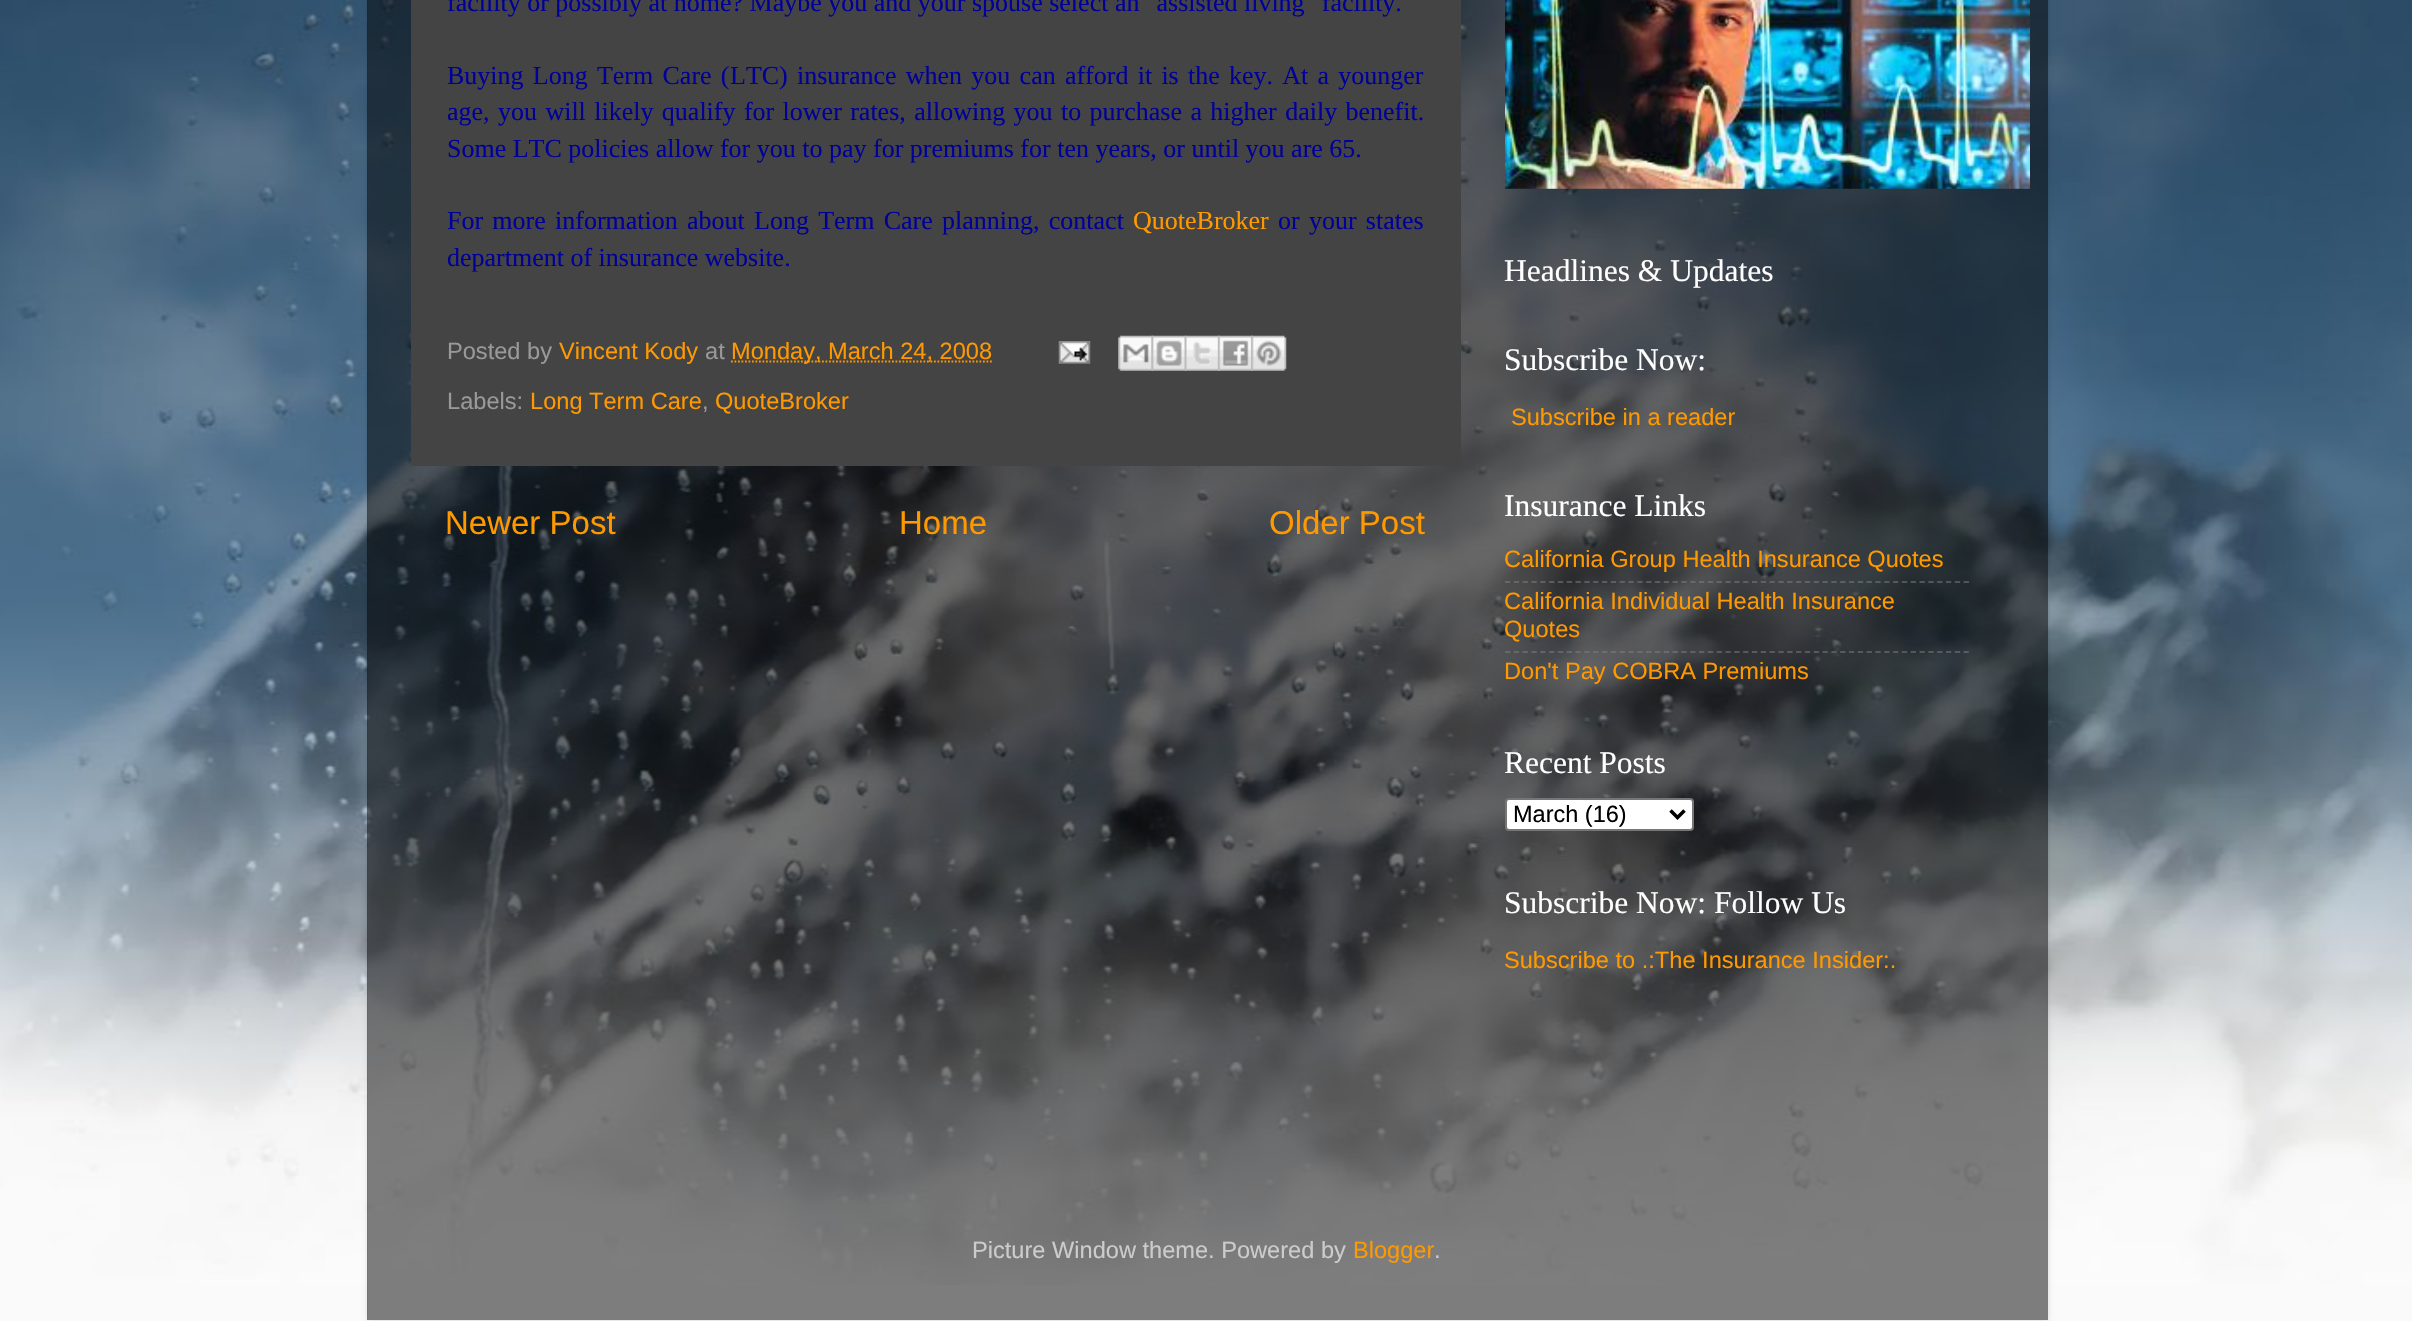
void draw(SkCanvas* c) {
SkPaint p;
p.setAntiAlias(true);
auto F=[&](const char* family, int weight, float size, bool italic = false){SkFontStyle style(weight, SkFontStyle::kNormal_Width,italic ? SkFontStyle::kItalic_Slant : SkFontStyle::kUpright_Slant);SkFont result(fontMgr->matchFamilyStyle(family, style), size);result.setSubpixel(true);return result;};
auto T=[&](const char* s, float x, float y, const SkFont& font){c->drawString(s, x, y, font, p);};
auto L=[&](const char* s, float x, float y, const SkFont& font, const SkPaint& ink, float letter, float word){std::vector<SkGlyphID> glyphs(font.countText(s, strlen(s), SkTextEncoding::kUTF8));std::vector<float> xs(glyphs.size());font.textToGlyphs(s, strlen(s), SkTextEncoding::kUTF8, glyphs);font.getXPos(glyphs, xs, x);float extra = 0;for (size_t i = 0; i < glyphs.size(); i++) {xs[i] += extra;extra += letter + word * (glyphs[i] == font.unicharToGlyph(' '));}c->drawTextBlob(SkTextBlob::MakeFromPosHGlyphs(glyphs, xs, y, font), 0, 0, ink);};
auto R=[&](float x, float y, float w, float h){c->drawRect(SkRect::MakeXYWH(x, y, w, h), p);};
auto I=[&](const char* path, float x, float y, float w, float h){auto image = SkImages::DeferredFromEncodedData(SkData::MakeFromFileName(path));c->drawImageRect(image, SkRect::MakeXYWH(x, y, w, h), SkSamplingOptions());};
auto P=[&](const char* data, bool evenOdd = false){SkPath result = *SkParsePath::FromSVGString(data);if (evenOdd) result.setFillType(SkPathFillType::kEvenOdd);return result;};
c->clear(0xfffafafa);
I("1.png",0,0,2412,1285);
c->save();
c->clipPath(P("M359 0h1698v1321h-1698zm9-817h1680v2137h-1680z",true),true);
p.setColor(0x26000000);
p.setMaskFilter(SkMaskFilter::MakeBlur(kNormal_SkBlurStyle, 2.5));
c->drawRect(SkRect::MakeXYWH(368,-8,1680,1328),p);
p.setMaskFilter(nullptr);
c->restore();
p.setColor(0x80000000);
R(367,0,1681,1320);
p.setColor(0xff444444);
R(411,0,1050,466);
auto f1 = F("Liberation Serif",400,26);
p.setColor(0xff000099);
T("facility or possibly at home? Maybe you and your spouse select an \"assisted living\" facility.",447,11,f1);
L("Buying Long Term Care (",447,84,f1,p,0,2.75);
T("LTC",730,84,f1);
L(") insurance when you can afford it is the key. At a younger",779,84,f1,p,0,2.75);
L("age, you will likely qualify for lower rates, allowing you to purchase a higher daily benefit.",447,120,f1,p,0,1.9);
T("Some LTC policies allow for you to pay for premiums for ten years, or until you are 65.",447,157,f1);
L("For more information about Long Term Care planning, contact",447,229,f1,p,0,2.75);
p.setColor(0xffff9900);
T("QuoteBroker",1133,229,f1);
p.setColor(0xff000099);
L("or your states",1278,229,f1,p,0,2.75);
T("department of insurance website.",447,266,f1);
auto f2 = F("Liberation Sans",400,23.6);
p.setColor(0xff999999);
T("Posted by",447,359,f2);
p.setColor(0xffff9900);
T("Vincent Kody",559,359,f2);
p.setColor(0xff999999);
T("at",705,359,f2);
p.setStroke(true);
p.setStrokeWidth(1.8);
p.setColor(0xffff9900);
p.setPathEffect(SkDashPathEffect::Make({{1.75f,1.75f}}, 0));
c->drawPath(P("M731 361.5h261"),p);
p.setPathEffect(nullptr);
p.setStroke(false);
T("Monday, March 24, 2008",731,359,f2);
I("2.png",1058,341,33,23);
I("3.png",1118,335,36,36);
I("4.png",1151,335,36,36);
I("5.png",1184,335,36,36);
I("6.png",1218,335,35,36);
I("7.png",1251,335,36,36);
p.setColor(0xff999999);
T("Labels:",447,409,f2);
p.setColor(0xffff9900);
T("Long Term Care",530,409,f2);
p.setColor(0xff999999);
T(",",702,409,f2);
p.setColor(0xffff9900);
T("QuoteBroker",715,409,f2);
auto f3 = F("Liberation Sans",400,33);
T("Newer Post",445,534,f3);
T("Home",899,534,f3);
T("Older Post",1269,534,f3);
I("8.png",1505,0,525,189);
auto f4 = F("Liberation Serif",400,31.5);
p.setColor(0xffffffff);
T("Headlines & Updates",1504,281,f4);
T("Subscribe Now:",1504,370,f4);
p.setColor(0xffff9900);
T("Subscribe in a reader",1511,425,f2);
p.setColor(0xffffffff);
T("Insurance Links",1504,516,f4);
p.setColor(0xffff9900);
T("California Group Health Insurance Quotes",1504,567,f2);
p.setStroke(true);
p.setColor(0x80808080);
p.setPathEffect(SkDashPathEffect::Make({{5.25f,3.57f}}, 0));
c->drawPath(P("M1505 582h464"),p);
p.setPathEffect(nullptr);
p.setStroke(false);
p.setColor(0xffff9900);
T("California Individual Health Insurance",1504,609,f2);
T("Quotes",1504,637,f2);
p.setStroke(true);
p.setColor(0x80808080);
p.setPathEffect(SkDashPathEffect::Make({{5.25f,3.57f}}, 0));
c->drawPath(P("M1505 652h464"),p);
p.setPathEffect(nullptr);
p.setStroke(false);
p.setColor(0xffff9900);
T("Don't Pay COBRA Premiums",1504,679,f2);
p.setColor(0xffffffff);
T("Recent Posts",1504,773,f4);
c->drawRoundRect(SkRect::MakeXYWH(1506,799,187,31),3,3,p);
p.setStroke(true);
p.setStrokeWidth(2);
p.setColor(0xff767676);
c->drawRoundRect(SkRect::MakeXYWH(1506,799,187,31),3,3,p);
p.setStrokeWidth(3.5);
p.setColor(0xff000000);
c->drawPath(P("M1670.5 810.5l7 7l7-7"),p);
auto f5 = F("Liberation Sans",400,23.5);
p.setStroke(false);
T("March (16)",1513,822,f5);
p.setColor(0xffffffff);
T("Subscribe Now: Follow Us",1504,913,f4);
p.setColor(0xffff9900);
T("Subscribe to .:The Insurance Insider:.",1504,968,f2);
p.setColor(0xffcccccc);
T("Picture Window theme. Powered by",972,1258,f2);
p.setColor(0xffff9900);
T("Blogger",1353,1258,f2);
p.setColor(0xffcccccc);
T(".",1434,1258,f2);
}
